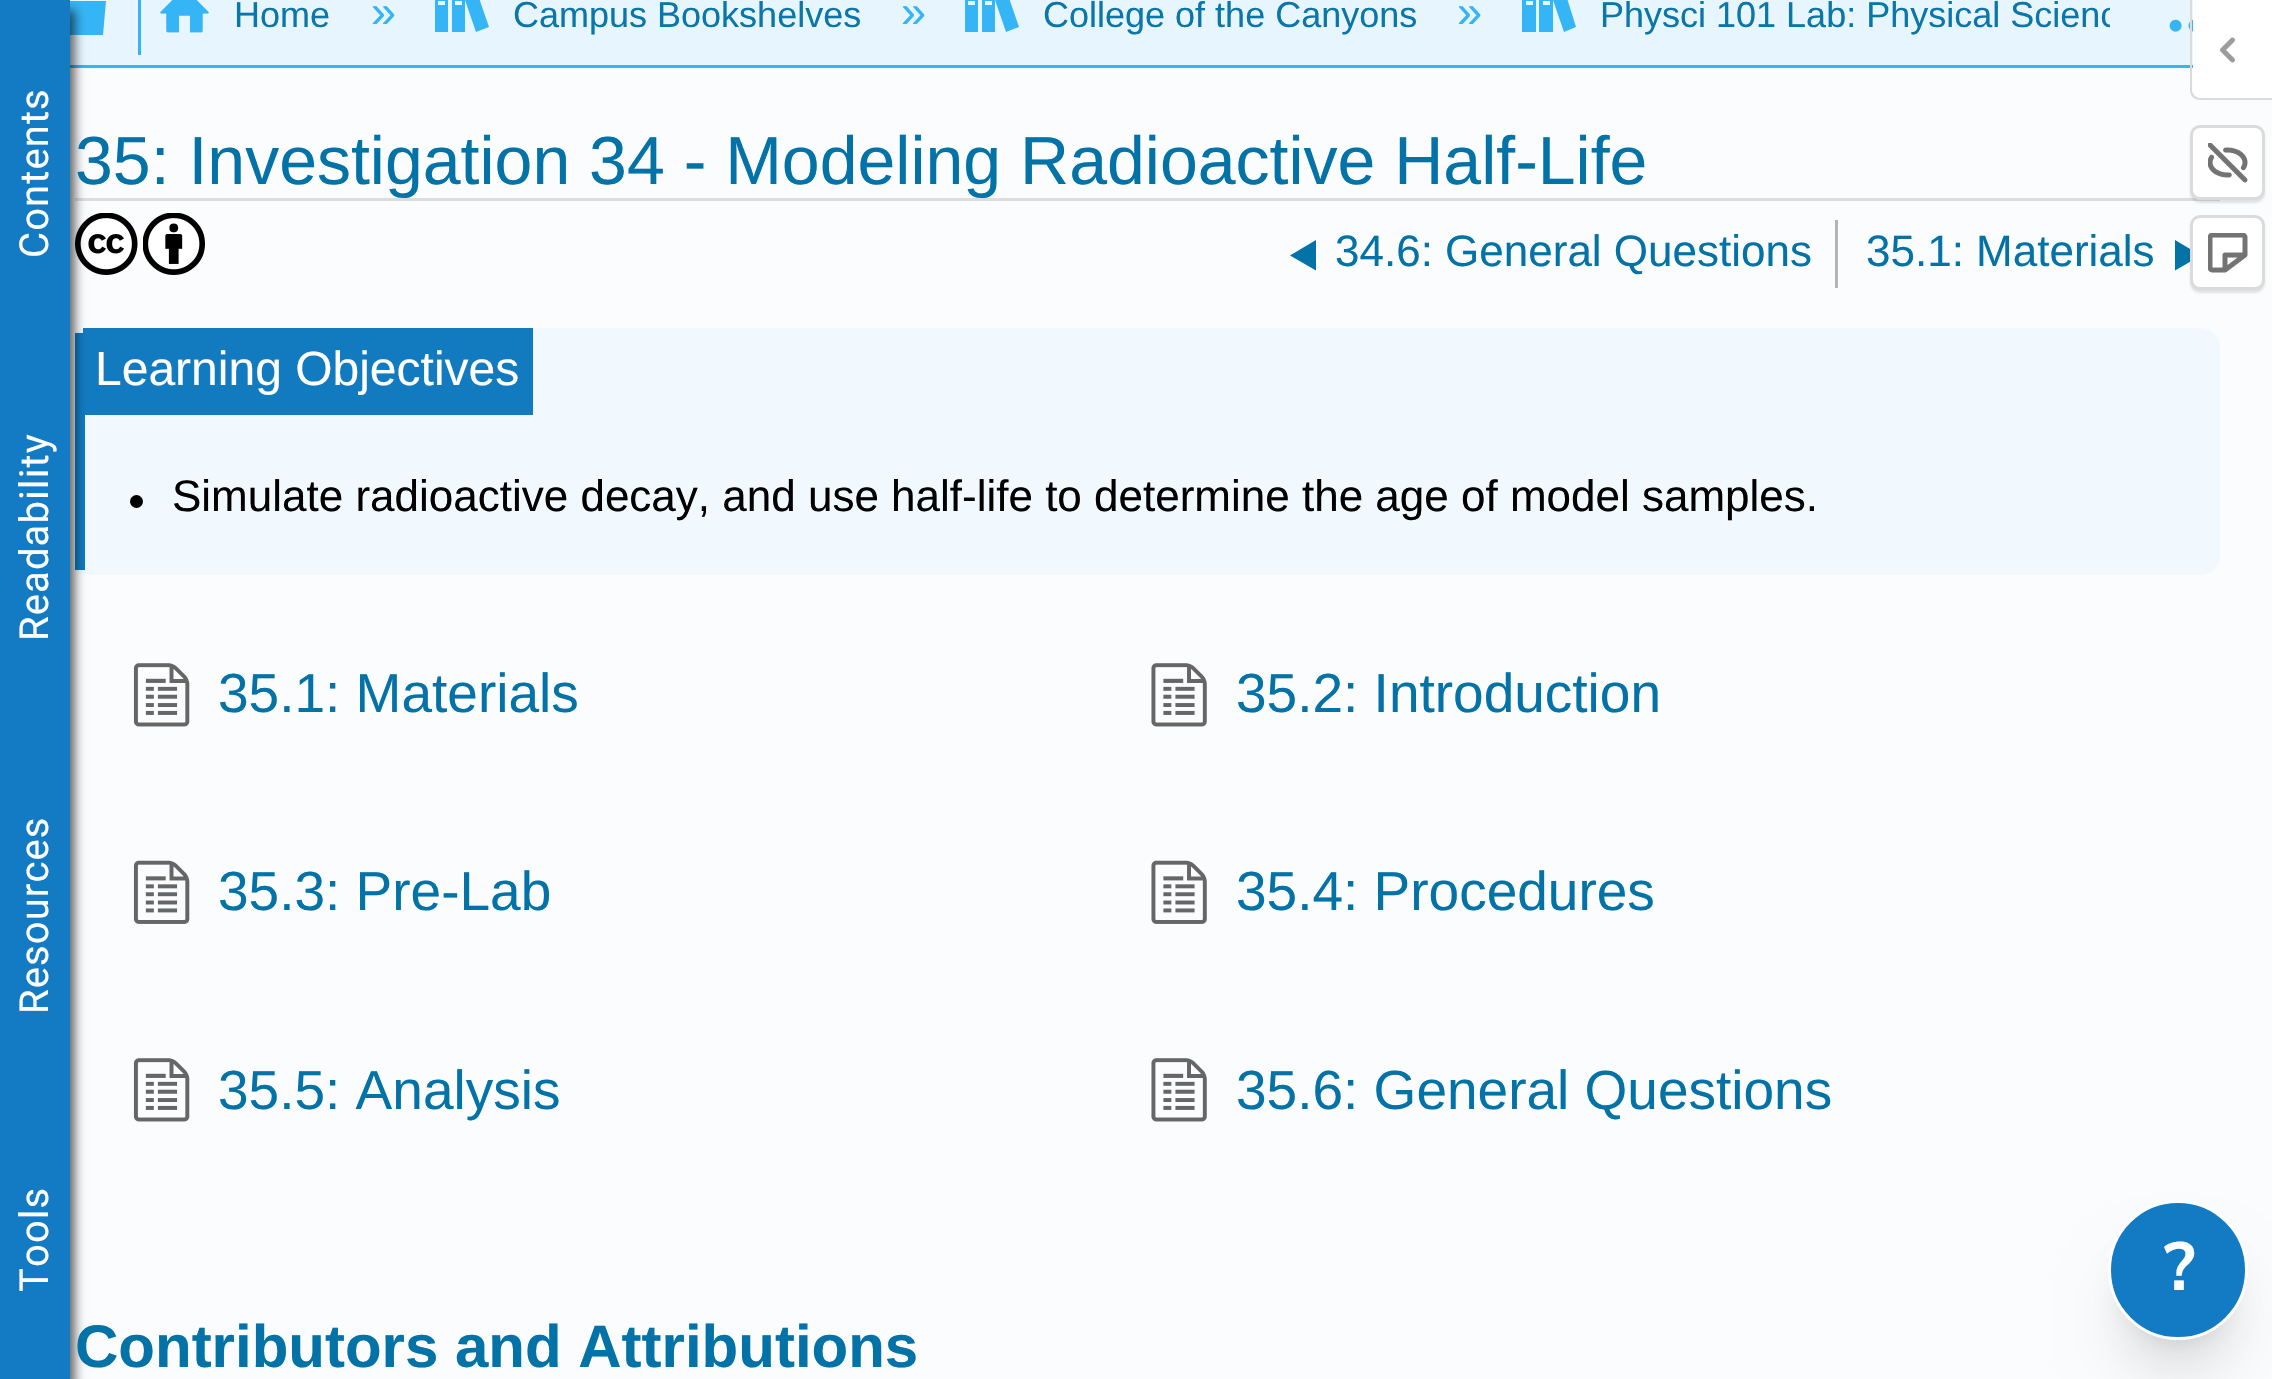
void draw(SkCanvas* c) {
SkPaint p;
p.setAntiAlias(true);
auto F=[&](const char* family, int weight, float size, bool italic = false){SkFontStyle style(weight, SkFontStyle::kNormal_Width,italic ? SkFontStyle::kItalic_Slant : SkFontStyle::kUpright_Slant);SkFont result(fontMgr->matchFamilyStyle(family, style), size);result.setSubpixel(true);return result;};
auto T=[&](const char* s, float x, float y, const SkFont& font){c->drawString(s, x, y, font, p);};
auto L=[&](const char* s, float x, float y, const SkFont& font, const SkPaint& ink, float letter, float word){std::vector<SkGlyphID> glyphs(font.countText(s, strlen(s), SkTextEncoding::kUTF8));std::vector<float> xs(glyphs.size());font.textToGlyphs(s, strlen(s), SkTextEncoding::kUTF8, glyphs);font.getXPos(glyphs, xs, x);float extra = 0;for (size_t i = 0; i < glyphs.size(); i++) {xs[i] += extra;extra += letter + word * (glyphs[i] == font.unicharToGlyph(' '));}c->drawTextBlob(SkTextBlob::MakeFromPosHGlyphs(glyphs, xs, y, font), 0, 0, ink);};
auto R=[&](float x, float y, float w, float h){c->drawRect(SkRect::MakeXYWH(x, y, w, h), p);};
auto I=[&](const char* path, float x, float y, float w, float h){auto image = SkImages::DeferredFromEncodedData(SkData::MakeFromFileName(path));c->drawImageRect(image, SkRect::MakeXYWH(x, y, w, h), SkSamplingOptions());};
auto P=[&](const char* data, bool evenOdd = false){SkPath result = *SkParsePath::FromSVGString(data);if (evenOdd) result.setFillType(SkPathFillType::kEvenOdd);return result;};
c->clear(0xfffbfcfe);
p.setColor(0xffe6f5fe);
R(70,0,2123,65);
p.setColor(0xff36b5f6);
R(70,65,2123,3);
c->drawPath(P("M53 10v-9h53l-3 34h-47zm48-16h-21l-2-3h-19l-3 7h47z",true),p);
p.setColor(0xffdddddd);
R(75,198,2145,3);
I("3.png",75,213,63,62);
p.setColor(0xfff1f9fe);
c->drawPath(P("M85 328h2115c11 0 20 9 20 20v207c0 11-9 20-20 20h-2115c-5.5 0-10-4.5-10-10v-227c0-5.5 4.5-10 10-10z"),p);
p.setColor(0xff127abf);
R(75,333,10,237);
R(83,328,450,87);
p.setColor(0x99000000);
p.setMaskFilter(SkMaskFilter::MakeBlur(kNormal_SkBlurStyle, 5));
c->drawRect(SkRect::MakeXYWH(5,10,70,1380),p);
p.setMaskFilter(nullptr);
p.setColor(0xff127bc4);
R(0,0,70,1379);
auto f1 = F("Roboto",400,40);
p.setColor(0xffffffff);
c->save();
c->rotate(-90,48,258);
L("Contents",48,258,f1,p,1.1,0);
c->restore();
c->save();
c->rotate(-90,48,641);
L("Readability",48,641,f1,p,1.1,0);
c->restore();
c->save();
c->rotate(-90,48,1014);
L("Resources",48,1014,f1,p,1.1,0);
c->restore();
c->save();
c->rotate(-90,48,1292);
L("Tools",48,1292,f1,p,1.1,0);
c->restore();
p.setColor(0xff36b5f6);
R(138,0,3,55);
I("1.png",160,0,49,33);
auto f2 = F("Liberation Sans",400,36);
p.setColor(0xff0a76a9);
T("Home",234,27,f2);
auto f3 = F("Liberation Sans",400,45);
p.setColor(0xff36b5f6);
T("»",371,27,f3);
p.setColor(0xff0a76a9);
T("Campus Bookshelves",513,27,f2);
p.setColor(0xff36b5f6);
c->drawPath(P("M465 0l13-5l11 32l-13 5zm-30 32h13v-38h-13zm3-31h7v4h-7zm14 31h13v-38h-13zm3-31h7v4h-7z"),p);
T("»",901,27,f3);
p.setColor(0xff0a76a9);
T("College of the Canyons",1043,27,f2);
p.setColor(0xff36b5f6);
c->drawPath(P("M995 0l13-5l11 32l-13 5zm-30 32h13v-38h-13zm3-31h7v4h-7zm14 31h13v-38h-13zm3-31h7v4h-7z"),p);
T("»",1457,27,f3);
c->save();
c->clipRect(SkRect::MakeXYWH(140,0,1970,55));
p.setColor(0xff0a76a9);
T("Physci 101 Lab: Physical Scienc",1600,27,f2);
c->restore();
p.setColor(0xff36b5f6);
c->drawPath(P("M1553 0l13-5l10 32l-12 5zm-31 32h14v-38h-14zm4-31h7v4h-7zm13 31h14v-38h-14zm4-31h7v4h-7z"),p);
I("2.png",2169,19,24,13);
auto f4 = F("Liberation Sans",400,68);
p.setColor(0xff0372a6);
T("35: Investigation 34 - Modeling Radioactive Half-Life",75,184,f4);
I("4.png",143,213,62,62);
p.setColor(0xffb4b4b4);
R(1835,220,3,68);
p.setColor(0xff0372a6);
c->drawPath(P("M1316 240v30.5l-26-15z"),p);
auto f5 = F("Liberation Sans",400,44);
T("34.6: General Questions",1335,266,f5);
T("35.1: Materials",1866,266,f5);
c->drawPath(P("M2175 240v30.5l26-15z"),p);
auto f6 = F("Liberation Sans",400,48);
p.setColor(0xffffffff);
T("Learning Objectives",95,385,f6);
p.setColor(0xff000000);
c->drawCircle(136.5,501.5,6.5,p);
T("Simulate radioactive decay, and use half-life to determine the age of model samples.",172,511,f5);
I("5.png",133,663,57,64);
auto f7 = F("Liberation Sans",400,55);
p.setColor(0xff0372a6);
T("35.1: Materials",218,712,f7);
I("6.png",1151,663,56,64);
T("35.2: Introduction",1236,712,f7);
I("7.png",133,860,57,64);
T("35.3: Pre-Lab",218,910,f7);
I("8.png",1151,860,56,64);
T("35.4: Procedures",1236,910,f7);
I("5.png",133,1058,57,64);
T("35.5: Analysis",218,1109,f7);
I("6.png",1151,1058,56,64);
T("35.6: General Questions",1236,1109,f7);
auto f8 = F("Liberation Sans",700,60);
T("Contributors and Attributions",75,1367,f8);
p.setColor(0x1a000000);
p.setMaskFilter(SkMaskFilter::MakeBlur(kNormal_SkBlurStyle, 12.5));
c->drawRoundRect(SkRect::MakeXYWH(2123,1235,110,110),55,55,p);
p.setMaskFilter(nullptr);
p.setMaskFilter(SkMaskFilter::MakeBlur(kNormal_SkBlurStyle, 31));
c->drawRoundRect(SkRect::MakeXYWH(2120,1263,115,115),57.5,57.5,p);
p.setMaskFilter(nullptr);
p.setColor(0xff127bc4);
c->drawCircle(2178,1270,68.5,p);
p.setStroke(true);
p.setStrokeWidth(3);
p.setColor(0xffffffff);
c->drawCircle(2178,1270,68.5,p);
auto f9 = F("Nunito Sans",700,68);
p.setStroke(false);
T("?",2164,1290,f9);
c->drawPath(P("M2193 0h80v98h-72c-4.5 0-8-3.5-8-8z"),p);
p.setColor(0xffdbdbdb);
c->drawPath(P("M2190 0h82v100h-72c-6 0-10-4-10-10zm2 0h80v98h-72c-4 0-8-4-8-8z",true),p);
I("9.png",2220,37,15,26);
p.setColor(0x1a000000);
p.setMaskFilter(SkMaskFilter::MakeBlur(kNormal_SkBlurStyle, 1));
c->drawRoundRect(SkRect::MakeXYWH(2190,128,75,75),10,10,p);
p.setMaskFilter(nullptr);
p.setColor(0xffffffff);
c->drawRoundRect(SkRect::MakeXYWH(2191.5,126.5,72,72),8.5,8.5,p);
p.setStroke(true);
p.setColor(0xffdbdbdb);
c->drawRoundRect(SkRect::MakeXYWH(2191.5,126.5,72,72),8.5,8.5,p);
I("10.png",2208,143,40,40);
p.setStroke(false);
p.setColor(0x1a000000);
p.setMaskFilter(SkMaskFilter::MakeBlur(kNormal_SkBlurStyle, 1));
c->drawRoundRect(SkRect::MakeXYWH(2190,218,75,75),10,10,p);
p.setMaskFilter(nullptr);
p.setColor(0xffffffff);
c->drawRoundRect(SkRect::MakeXYWH(2191.5,216.5,72,72),8.5,8.5,p);
p.setStroke(true);
p.setColor(0xffdbdbdb);
c->drawRoundRect(SkRect::MakeXYWH(2191.5,216.5,72,72),8.5,8.5,p);
I("11.png",2208,233,40,40);
}
